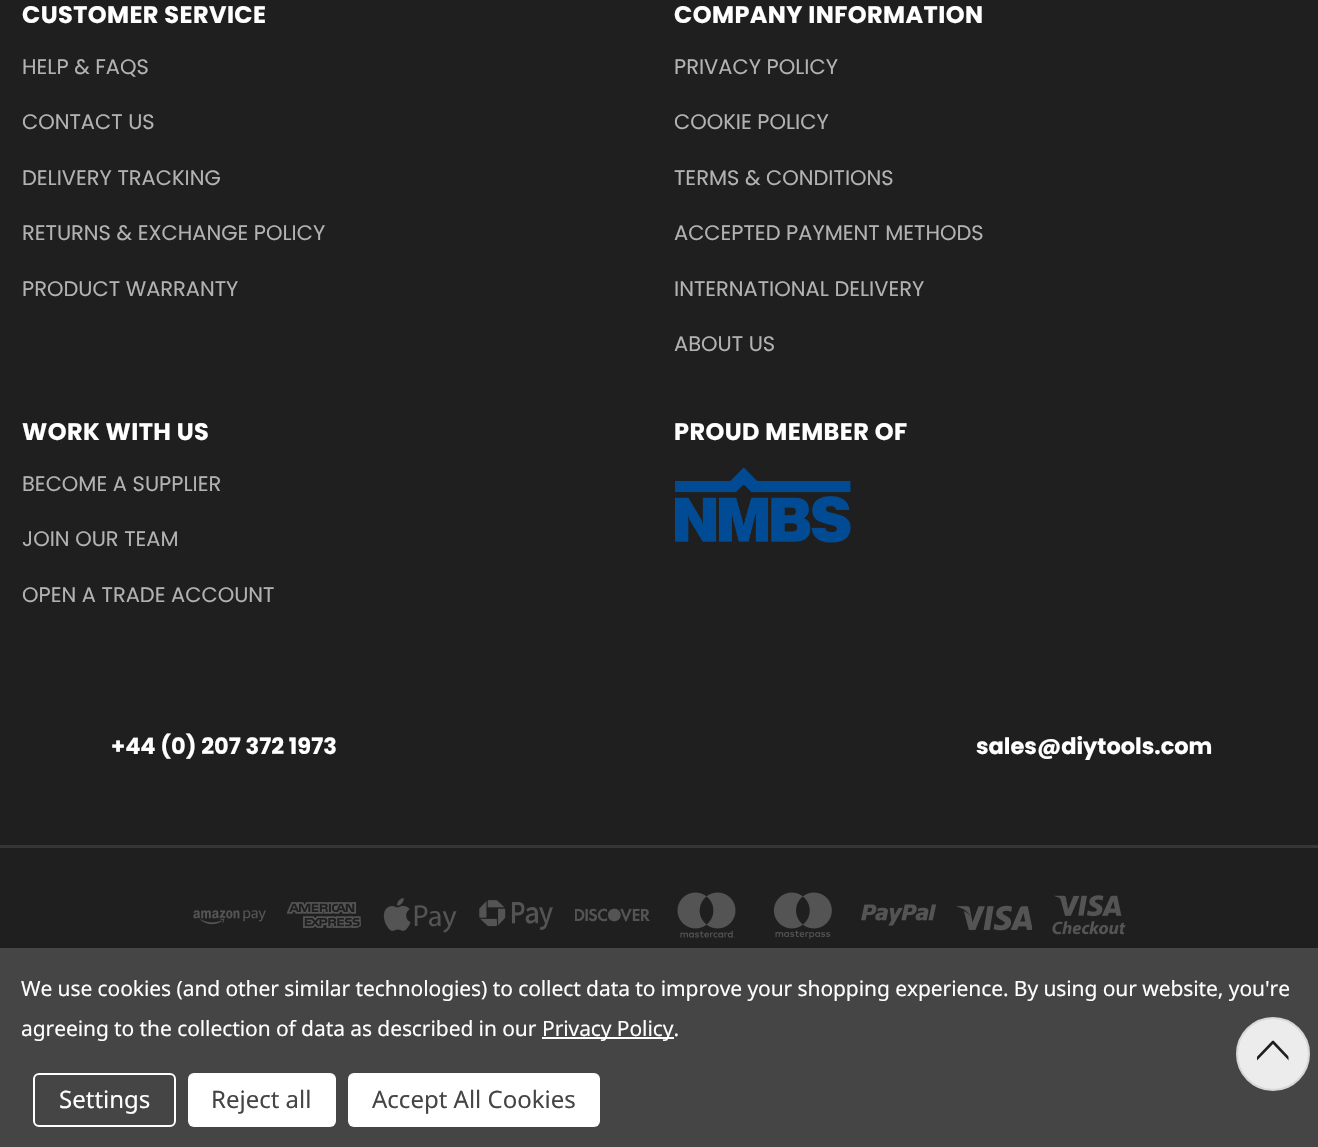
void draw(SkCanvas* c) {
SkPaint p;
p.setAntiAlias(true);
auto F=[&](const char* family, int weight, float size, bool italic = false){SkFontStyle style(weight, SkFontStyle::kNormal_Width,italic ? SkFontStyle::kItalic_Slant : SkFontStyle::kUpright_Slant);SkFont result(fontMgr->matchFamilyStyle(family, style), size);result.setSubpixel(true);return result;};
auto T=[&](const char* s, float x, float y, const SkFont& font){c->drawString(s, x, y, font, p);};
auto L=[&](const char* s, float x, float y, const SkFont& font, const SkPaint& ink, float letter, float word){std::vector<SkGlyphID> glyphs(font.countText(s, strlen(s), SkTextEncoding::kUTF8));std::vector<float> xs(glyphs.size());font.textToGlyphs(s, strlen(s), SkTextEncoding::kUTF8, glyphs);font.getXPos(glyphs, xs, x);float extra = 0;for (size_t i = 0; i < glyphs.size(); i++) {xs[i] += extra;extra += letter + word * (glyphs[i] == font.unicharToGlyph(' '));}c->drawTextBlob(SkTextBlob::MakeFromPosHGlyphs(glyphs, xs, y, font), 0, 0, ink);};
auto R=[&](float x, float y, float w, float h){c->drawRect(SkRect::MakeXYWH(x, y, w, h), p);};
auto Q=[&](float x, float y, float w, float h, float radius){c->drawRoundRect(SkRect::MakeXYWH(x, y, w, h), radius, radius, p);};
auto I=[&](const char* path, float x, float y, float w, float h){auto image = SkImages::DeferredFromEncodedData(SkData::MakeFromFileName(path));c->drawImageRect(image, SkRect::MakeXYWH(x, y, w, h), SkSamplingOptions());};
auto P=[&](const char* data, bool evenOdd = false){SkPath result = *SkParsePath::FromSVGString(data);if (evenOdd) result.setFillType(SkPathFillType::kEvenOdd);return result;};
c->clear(0xff1f1f1f);
auto f1 = F("Poppins",700,24);
p.setColor(0xffffffff);
L("CUSTOMER SERVICE",22,23,f1,p,.4,0);
auto f2 = F("Poppins",400,21);
p.setColor(0xffb2b2b2);
T("HELP & FAQS",22,74,f2);
T("CONTACT US",22,129,f2);
T("DELIVERY TRACKING",22,185,f2);
T("RETURNS & EXCHANGE POLICY",22,240,f2);
T("PRODUCT WARRANTY",22,296,f2);
p.setColor(0xffffffff);
L("COMPANY INFORMATION",674,23,f1,p,.4,0);
p.setColor(0xffb2b2b2);
T("PRIVACY POLICY",674,74,f2);
T("COOKIE POLICY",674,129,f2);
T("TERMS & CONDITIONS",674,185,f2);
T("ACCEPTED PAYMENT METHODS",674,240,f2);
T("INTERNATIONAL DELIVERY",674,296,f2);
T("ABOUT US",674,351,f2);
p.setColor(0xffffffff);
L("WORK WITH US",22,440,f1,p,.4,0);
p.setColor(0xffb2b2b2);
T("BECOME A SUPPLIER",22,491,f2);
T("JOIN OUR TEAM",22,546,f2);
T("OPEN A TRADE ACCOUNT",22,602,f2);
p.setColor(0xffffffff);
L("PROUD MEMBER OF",674,440,f1,p,.4,0);
I("1.png",675,467,176,76);
auto f3 = F("Poppins",700,22.5);
T("+44 (0) 207 372 1973",111,754,f3);
T("sales@diytools.com",976,754,f3);
p.setColor(0xff363636);
R(0,845,1318,3);
I("2.png",193,910,73,15);
I("3.png",287,902,74,26);
I("4.png",383,898,74,35);
I("5.png",479,900,74,30);
I("6.png",575,908,75,14);
I("7.png",677,892,59,46);
I("8.png",773,892,59,47);
I("9.png",861,904,75,22);
I("10.png",957,905,75,26);
I("11.png",1052,895,74,40);
p.setColor(0xff454545);
R(0,948,1318,199);
p.setColor(0xffececec);
c->drawCircle(1273,1054,36,p);
p.setStroke(true);
p.setStrokeWidth(2);
p.setColor(0xffd7d7d7);
c->drawCircle(1273,1054,36,p);
c->save();
c->clipPath(P("M1288.5 1040v32h-31.5v-32z"),true);
p.setStrokeWidth(2.6);
p.setStrokeCap(SkPaint::kRound_Cap);
p.setStrokeJoin(SkPaint::kRound_Join);
p.setColor(0xff1f1f1f);
c->drawPath(P("M1299 1069.5l-26-27.5l-26.5 27.5"),p);
c->restore();
auto f4 = F("Noto Sans",400,21);
p.setStroke(false);
p.setColor(0xffffffff);
L("We use cookies (and other similar technologies) to collect data to improve your shopping experience. By using our website, you're",21,996,f4,p,-.08,0);
L("agreeing to the collection of data as described in our",21,1036,f4,p,-.08,0);
R(542,1037,132,2);
L("Privacy Policy.",542,1036,f4,p,-.08,0);
p.setStroke(true);
p.setStrokeWidth(2);
p.setStrokeCap(SkPaint::kButt_Cap);
p.setStrokeJoin(SkPaint::kMiter_Join);
c->drawRoundRect(SkRect::MakeXYWH(34,1074,141,52),5,5,p);
auto f5 = F("Noto Sans",400,24);
p.setStroke(false);
T("Settings",59,1108,f5);
Q(188,1073,148,54,6);
p.setColor(0xff454545);
T("Reject all",211,1108,f5);
p.setColor(0xffffffff);
Q(348,1073,252,54,6);
p.setColor(0xff454545);
T("Accept All Cookies",372,1108,f5);
}
